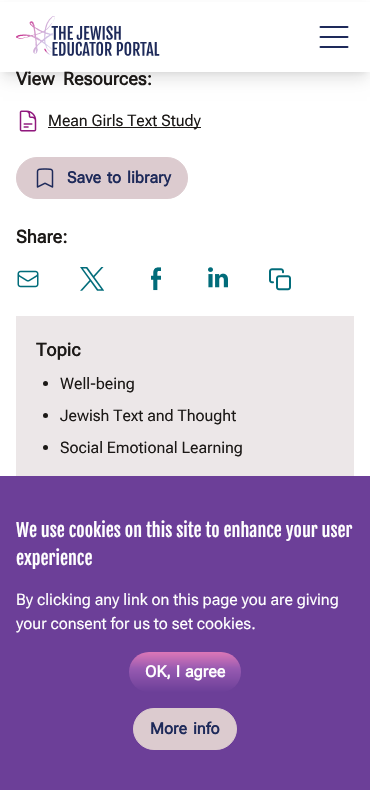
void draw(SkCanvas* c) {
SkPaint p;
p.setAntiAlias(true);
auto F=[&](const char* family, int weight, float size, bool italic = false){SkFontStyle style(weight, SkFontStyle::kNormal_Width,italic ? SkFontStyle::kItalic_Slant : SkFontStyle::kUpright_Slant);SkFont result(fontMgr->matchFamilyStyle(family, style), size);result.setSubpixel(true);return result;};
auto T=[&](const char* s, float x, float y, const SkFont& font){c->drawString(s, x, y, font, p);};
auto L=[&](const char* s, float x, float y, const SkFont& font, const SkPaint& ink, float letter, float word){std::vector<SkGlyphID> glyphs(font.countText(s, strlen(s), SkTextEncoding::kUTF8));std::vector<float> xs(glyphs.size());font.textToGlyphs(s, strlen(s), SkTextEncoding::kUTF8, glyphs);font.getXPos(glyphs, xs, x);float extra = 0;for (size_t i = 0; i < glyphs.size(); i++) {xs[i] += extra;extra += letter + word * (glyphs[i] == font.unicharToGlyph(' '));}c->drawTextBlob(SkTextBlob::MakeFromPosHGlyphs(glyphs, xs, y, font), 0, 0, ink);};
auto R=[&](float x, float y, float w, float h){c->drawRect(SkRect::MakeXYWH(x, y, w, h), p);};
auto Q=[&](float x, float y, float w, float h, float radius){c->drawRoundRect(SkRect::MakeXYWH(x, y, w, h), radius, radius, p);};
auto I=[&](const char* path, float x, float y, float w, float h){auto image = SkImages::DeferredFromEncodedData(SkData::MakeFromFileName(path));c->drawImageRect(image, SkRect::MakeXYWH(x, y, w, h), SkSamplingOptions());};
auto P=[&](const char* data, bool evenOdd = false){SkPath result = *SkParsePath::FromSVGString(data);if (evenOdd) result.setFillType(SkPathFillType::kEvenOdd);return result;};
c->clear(0xffffffff);
p.setColor(0x1a000000);
p.setMaskFilter(SkMaskFilter::MakeBlur(kNormal_SkBlurStyle, 3));
c->drawRect(SkRect::MakeXYWH(4,8,362,64),p);
p.setMaskFilter(nullptr);
p.setMaskFilter(SkMaskFilter::MakeBlur(kNormal_SkBlurStyle, 7.5));
c->drawRect(SkRect::MakeXYWH(3,13,364,66),p);
p.setMaskFilter(nullptr);
p.setColor(0xffffffff);
R(0,2,370,70);
I("1.png",16,16,144,40);
p.setStroke(true);
p.setStrokeWidth(2);
p.setStrokeCap(SkPaint::kRound_Cap);
p.setStrokeJoin(SkPaint::kRound_Join);
p.setColor(0xff1e2a5a);
c->drawPath(P("M320.5 27h27m-27 10h27m-27 10h27"),p);
auto f1 = F("Roboto Flex",700,18);
p.setStroke(false);
p.setColor(0xff1c1917);
L("View Resources:",16,85,f1,p,0,4);
I("2.png",19,110,18,22);
R(48,127,153,1);
auto f2 = F("Roboto Flex",400,16);
T("Mean Girls Text Study",48,126,f2);
p.setColor(0xffdccbcf);
c->drawRoundRect(SkRect::MakeXYWH(16.5,157.5,171,41),20.5,20.5,p);
p.setStroke(true);
p.setStrokeWidth(1);
p.setStrokeCap(SkPaint::kButt_Cap);
p.setStrokeJoin(SkPaint::kMiter_Join);
c->drawRoundRect(SkRect::MakeXYWH(16.5,157.5,171,41),20.5,20.5,p);
I("3.png",36,168,18,20);
auto f3 = F("Roboto Flex",700,16);
p.setStroke(false);
p.setColor(0xff1e2a5a);
L("Save to library",67,183,f3,p,0,2);
p.setColor(0xff1c1917);
T("Share:",16,243,f1);
I("4.png",17,270,22,18);
I("5.png",80,267,24,24);
I("6.png",151,267,10,24);
I("7.png",208,267,20,21);
I("8.png",269,268,22,23);
p.setColor(0xffece7e8);
R(16,316,338,160);
p.setColor(0xff1c1917);
T("Topic",36,356,f1);
c->drawCircle(45.5,383.5,2.5,p);
T("Well-being",60,389,f2);
c->drawCircle(45.5,415.5,2.5,p);
T("Jewish Text and Thought",60,421,f2);
c->drawCircle(45.5,447.5,2.5,p);
T("Social Emotional Learning",60,453,f2);
p.setColor(0xff6c3f98);
R(0,476,370,314);
auto f4 = F("Fjalla One",400,18);
p.setColor(0xffffffff);
T("We use cookies on this site to enhance your user",16,537,f4);
T("experience",16,565,f4);
T("By clicking any link on this page you are giving",16,605,f2);
T("your consent for us to set cookies.",16,629,f2);
{
const SkColor colors[] = {0xff6c3f98,0xff975ab1,0xffdc77b7};
const float stops[] = {0,.58,1};
const SkPoint ends[] = {{185,692}, {185,652}};
p.setShader(SkGradientShader::MakeLinear(ends, colors, stops, 3, SkTileMode::kClamp));
p.setAlpha(255);
}
Q(129,652,112,40,20);
p.setShader(nullptr);
p.setColor(0xffffffff);
L("OK, I agree",145,677,f3,p,0,1);
p.setColor(0xffdccbcf);
c->drawRoundRect(SkRect::MakeXYWH(133.5,708.5,103,41),20.5,20.5,p);
p.setStroke(true);
c->drawRoundRect(SkRect::MakeXYWH(133.5,708.5,103,41),20.5,20.5,p);
p.setStroke(false);
p.setColor(0xff1e2a5a);
L("More info",150,734,f3,p,0,2);
}
